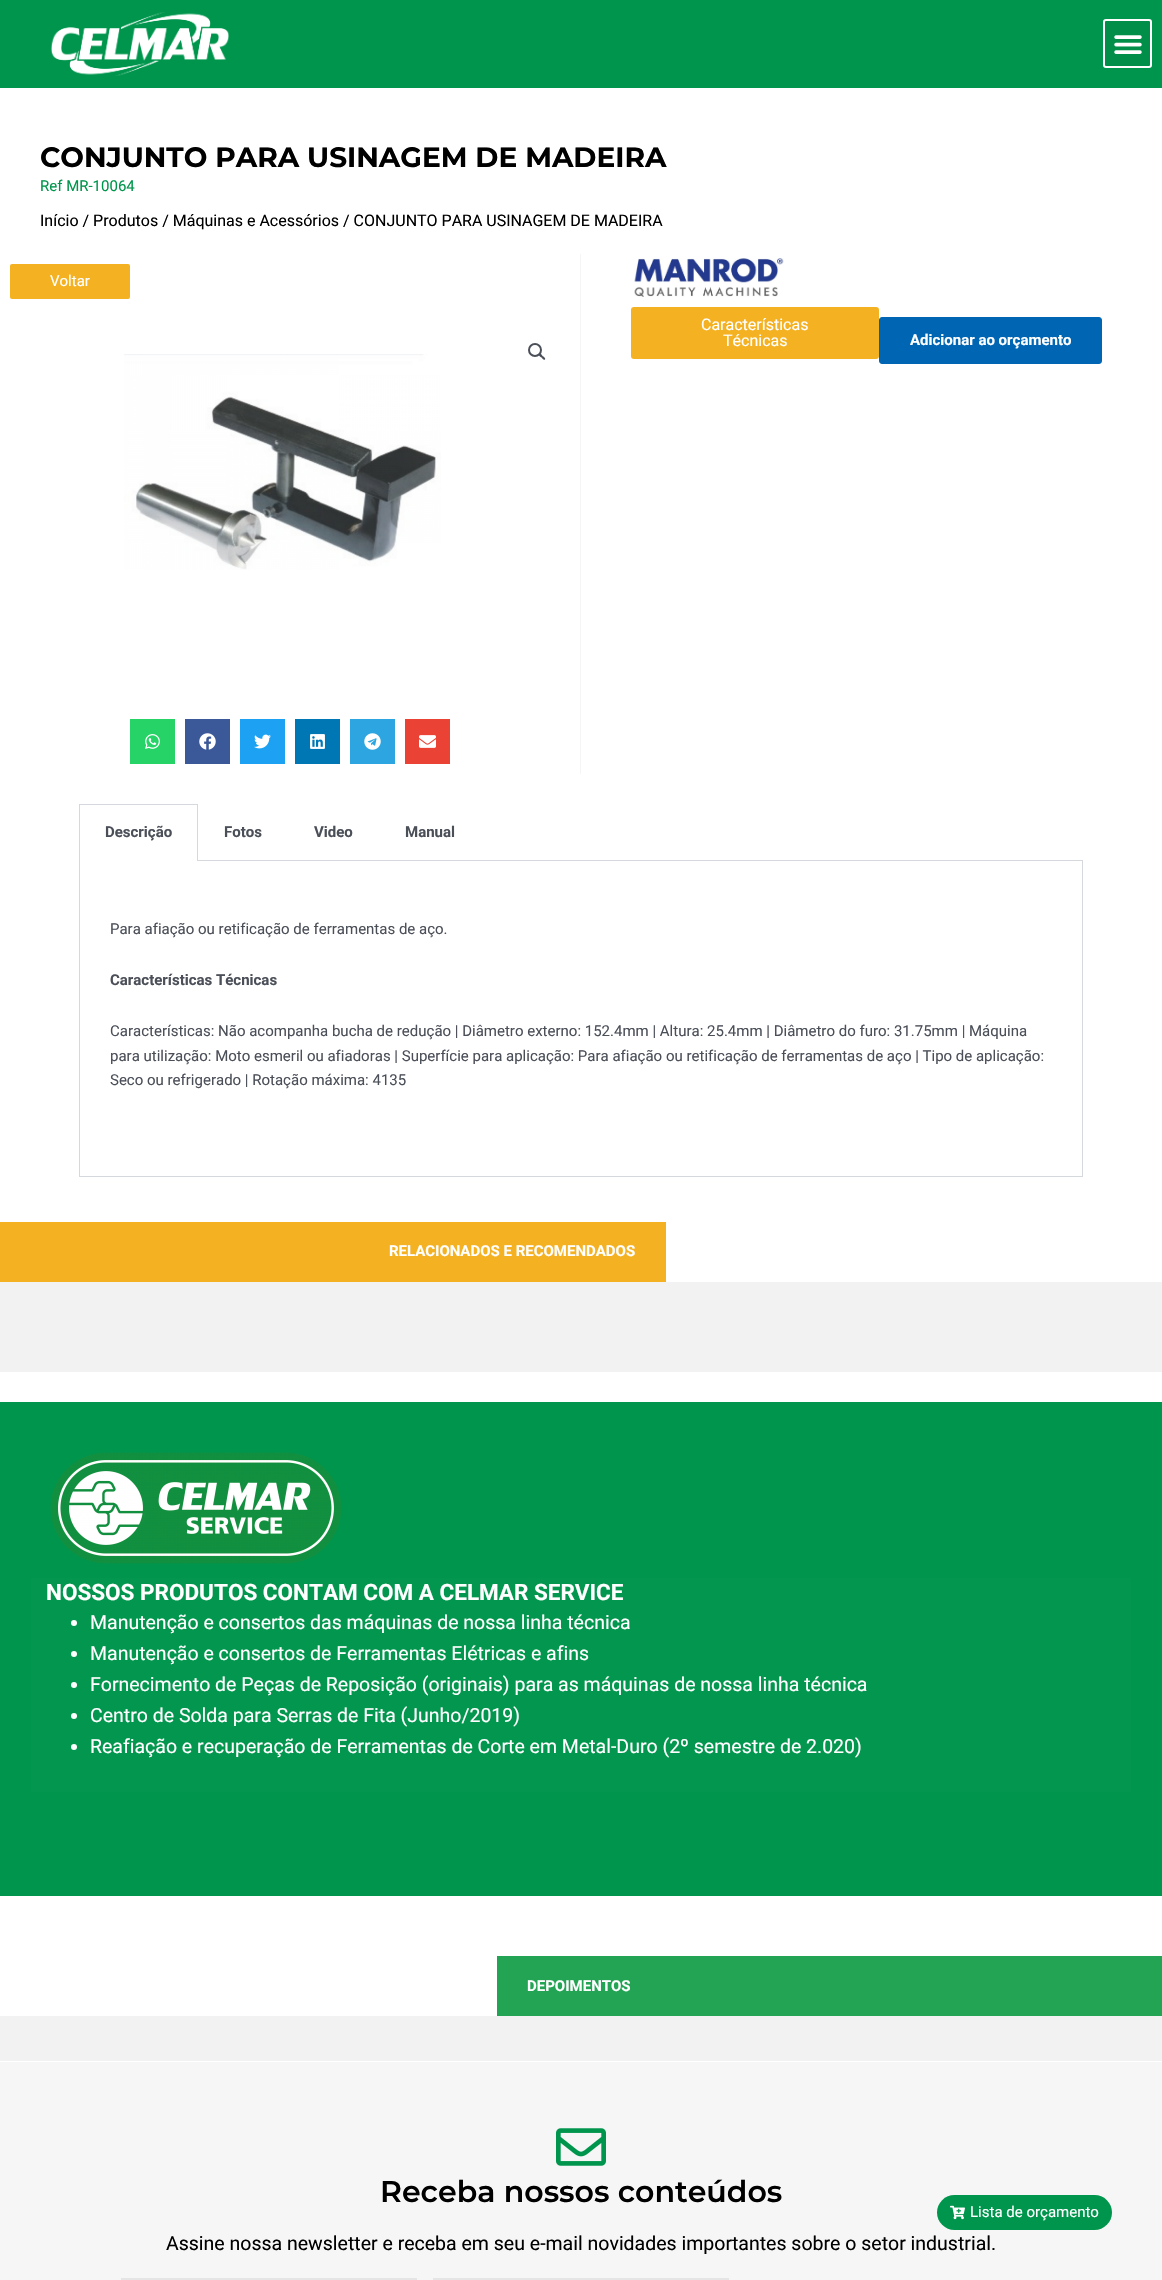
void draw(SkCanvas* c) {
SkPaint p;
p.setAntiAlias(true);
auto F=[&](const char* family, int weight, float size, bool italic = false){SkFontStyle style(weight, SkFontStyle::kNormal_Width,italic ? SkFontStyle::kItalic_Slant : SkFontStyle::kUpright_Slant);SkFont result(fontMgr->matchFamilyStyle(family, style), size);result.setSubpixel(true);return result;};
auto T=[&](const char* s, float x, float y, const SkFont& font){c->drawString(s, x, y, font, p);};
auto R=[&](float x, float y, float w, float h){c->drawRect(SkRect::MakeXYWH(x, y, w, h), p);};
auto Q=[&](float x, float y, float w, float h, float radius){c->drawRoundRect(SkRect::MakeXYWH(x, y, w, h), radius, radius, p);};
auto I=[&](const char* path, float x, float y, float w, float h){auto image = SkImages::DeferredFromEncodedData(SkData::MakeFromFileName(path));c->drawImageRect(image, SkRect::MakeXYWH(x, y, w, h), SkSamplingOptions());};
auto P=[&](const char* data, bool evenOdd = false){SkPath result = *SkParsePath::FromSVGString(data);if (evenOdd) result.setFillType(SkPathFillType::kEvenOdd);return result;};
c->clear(0xffffffff);
p.setColor(0xff00954c);
R(0,0,1162,88);
I("1.png",51,12,178,64);
p.setColor(0xff008e48);
c->drawRoundRect(SkRect::MakeXYWH(1104,20,47,47),2,2,p);
p.setStroke(true);
p.setStrokeWidth(2);
p.setColor(0xffffffff);
c->drawRoundRect(SkRect::MakeXYWH(1104,20,47,47),2,2,p);
I("2.png",1114,35,28,19);
auto f1 = F("Montserrat",700,28);
p.setStroke(false);
p.setColor(0xff000000);
T("CONJUNTO PARA USINAGEM DE MADEIRA",40,167,f1);
auto f2 = F("Roboto",400,15);
p.setColor(0xff00954c);
T("Ref MR-10064",40,191,f2);
auto f3 = F("Roboto",400,16);
p.setColor(0xff000000);
T("Início / Produtos / Máquinas e Acessórios / CONJUNTO PARA USINAGEM DE MADEIRA",40,226,f3);
p.setColor(0xfff5f5f5);
R(580,254,1,520);
p.setColor(0xfff4b223);
Q(10,264,120,35,2);
p.setColor(0xffffffff);
T("Voltar",50,286,f2);
p.setStroke(true);
p.setColor(0xff4b4f58);
c->drawCircle(535,350,6,p);
p.setStroke(false);
c->drawPath(P("M539 354c1.5-1.5 3 1.5 3.5 2c1 .5 3.5 2.5 2.5 3.5c-1.5 1-3-1.5-3.5-2c-1-.5-3.5-2.5-2.5-3.5z"),p);
I("3.png",124,354,317,216);
p.setColor(0xff25d366);
R(130,719,45,45);
I("4.png",145,734,15,15);
p.setColor(0xff3b5998);
R(185,719,45,45);
I("5.png",199,733,17,17);
p.setColor(0xff1da1f2);
R(240,719,45,45);
I("6.png",254,734,17,15);
p.setColor(0xff0077b5);
R(295,719,45,45);
I("7.png",310,734,15,15);
p.setColor(0xff2ca5e0);
R(350,719,45,45);
I("8.png",364,733,17,17);
p.setColor(0xffea4335);
R(405,719,45,45);
I("9.png",419,735,17,13);
I("10.png",634,258,150,39);
p.setColor(0xfff4b223);
Q(631,307,248,52,3);
p.setColor(0xffffffff);
T("Características",701,330,f3);
T("Técnicas",723,346,f3);
p.setColor(0xff0066b4);
c->drawRoundRect(SkRect::MakeXYWH(879.5,317.5,222,46),2.5,2.5,p);
p.setStroke(true);
p.setStrokeWidth(1);
c->drawRoundRect(SkRect::MakeXYWH(879.5,317.5,222,46),2.5,2.5,p);
auto f4 = F("Roboto",700,15);
p.setStroke(false);
p.setColor(0xffffffff);
T("Adicionar ao orçamento",910,345,f4);
p.setColor(0xffd5d8dc);
R(79,804,119,1);
R(197,804,1,57);
R(79,804,1,57);
p.setColor(0xff4b4f58);
T("Descrição",105,837,f4);
p.setColor(0xffd5d8dc);
R(197,860,886,1);
p.setColor(0xff4b4f58);
T("Fotos",224,837,f4);
T("Video",314,837,f4);
T("Manual",405,837,f4);
p.setColor(0xffd5d8dc);
R(1082,861,1,316);
R(79,1176,1004,1);
R(79,861,1,316);
p.setColor(0xff4b4f58);
T("Para afiação ou retificação de ferramentas de aço.",110,934,f2);
T("Características Técnicas",110,985,f4);
T("Características: Não acompanha bucha de redução | Diâmetro externo: 152.4mm | Altura: 25.4mm | Diâmetro do furo: 31.75mm | Máquina",110,1036,f2);
T("para utilização: Moto esmeril ou afiadoras | Superfície para aplicação: Para afiação ou retificação de ferramentas de aço | Tipo de aplicação:",110,1061,f2);
T("Seco ou refrigerado | Rotação máxima: 4135",110,1085,f2);
p.setColor(0xfff4b223);
R(0,1222,666,60);
p.setColor(0xffffffff);
T("RELACIONADOS E RECOMENDADOS",389,1256,f4);
p.setColor(0xfff3f2f2);
R(0,1282,1162,90);
p.setColor(0xff00954c);
R(0,1402,1162,494);
I("11.png",50,1452,292,112);
p.setColor(0xff03964e);
R(31,1578,1100,214);
auto f5 = F("Roboto",700,22.5);
p.setColor(0xffffffff);
T("NOSSOS PRODUTOS CONTAM COM A CELMAR SERVICE",46,1600,f5);
c->drawCircle(74,1623,3,p);
auto f6 = F("Roboto",400,19.5);
T("Manutenção e consertos das máquinas de nossa linha técnica",90,1629,f6);
c->drawCircle(74,1654,3,p);
T("Manutenção e consertos de Ferramentas Elétricas e afins",90,1660,f6);
c->drawCircle(74,1685,3,p);
T("Fornecimento de Peças de Reposição (originais) para as máquinas de nossa linha técnica",90,1691,f6);
c->drawCircle(74,1716,3,p);
T("Centro de Solda para Serras de Fita (Junho/2019)",90,1722,f6);
c->drawCircle(74,1747,3,p);
T("Reafiação e recuperação de Ferramentas de Corte em Metal-Duro (2º semestre de 2.020)",90,1753,f6);
p.setColor(0xff23a455);
R(497,1956,665,60);
p.setColor(0xffffffff);
T("DEPOIMENTOS",527,1991,f4);
p.setColor(0xfff2f2f2);
R(0,2016,1162,45);
p.setColor(0xfff6f6f6);
R(0,2062,1162,218);
I("12.png",556,2128,50,38);
auto f7 = F("Montserrat",600,30);
p.setColor(0xff000000);
T("Receba nossos conteúdos",380,2202,f7);
T("Assine nossa newsletter e receba em seu e-mail novidades importantes sobre o setor industrial.",166,2250,f6);
p.setColor(0xffe5e5e5);
R(121,2278,296,2);
R(433,2278,296,2);
p.setColor(0xff00954c);
Q(937,2195,175,35,17.5);
I("13.png",950,2205,15,15);
p.setColor(0xffffffff);
T("Lista de orçamento",970,2217,f2);
}
